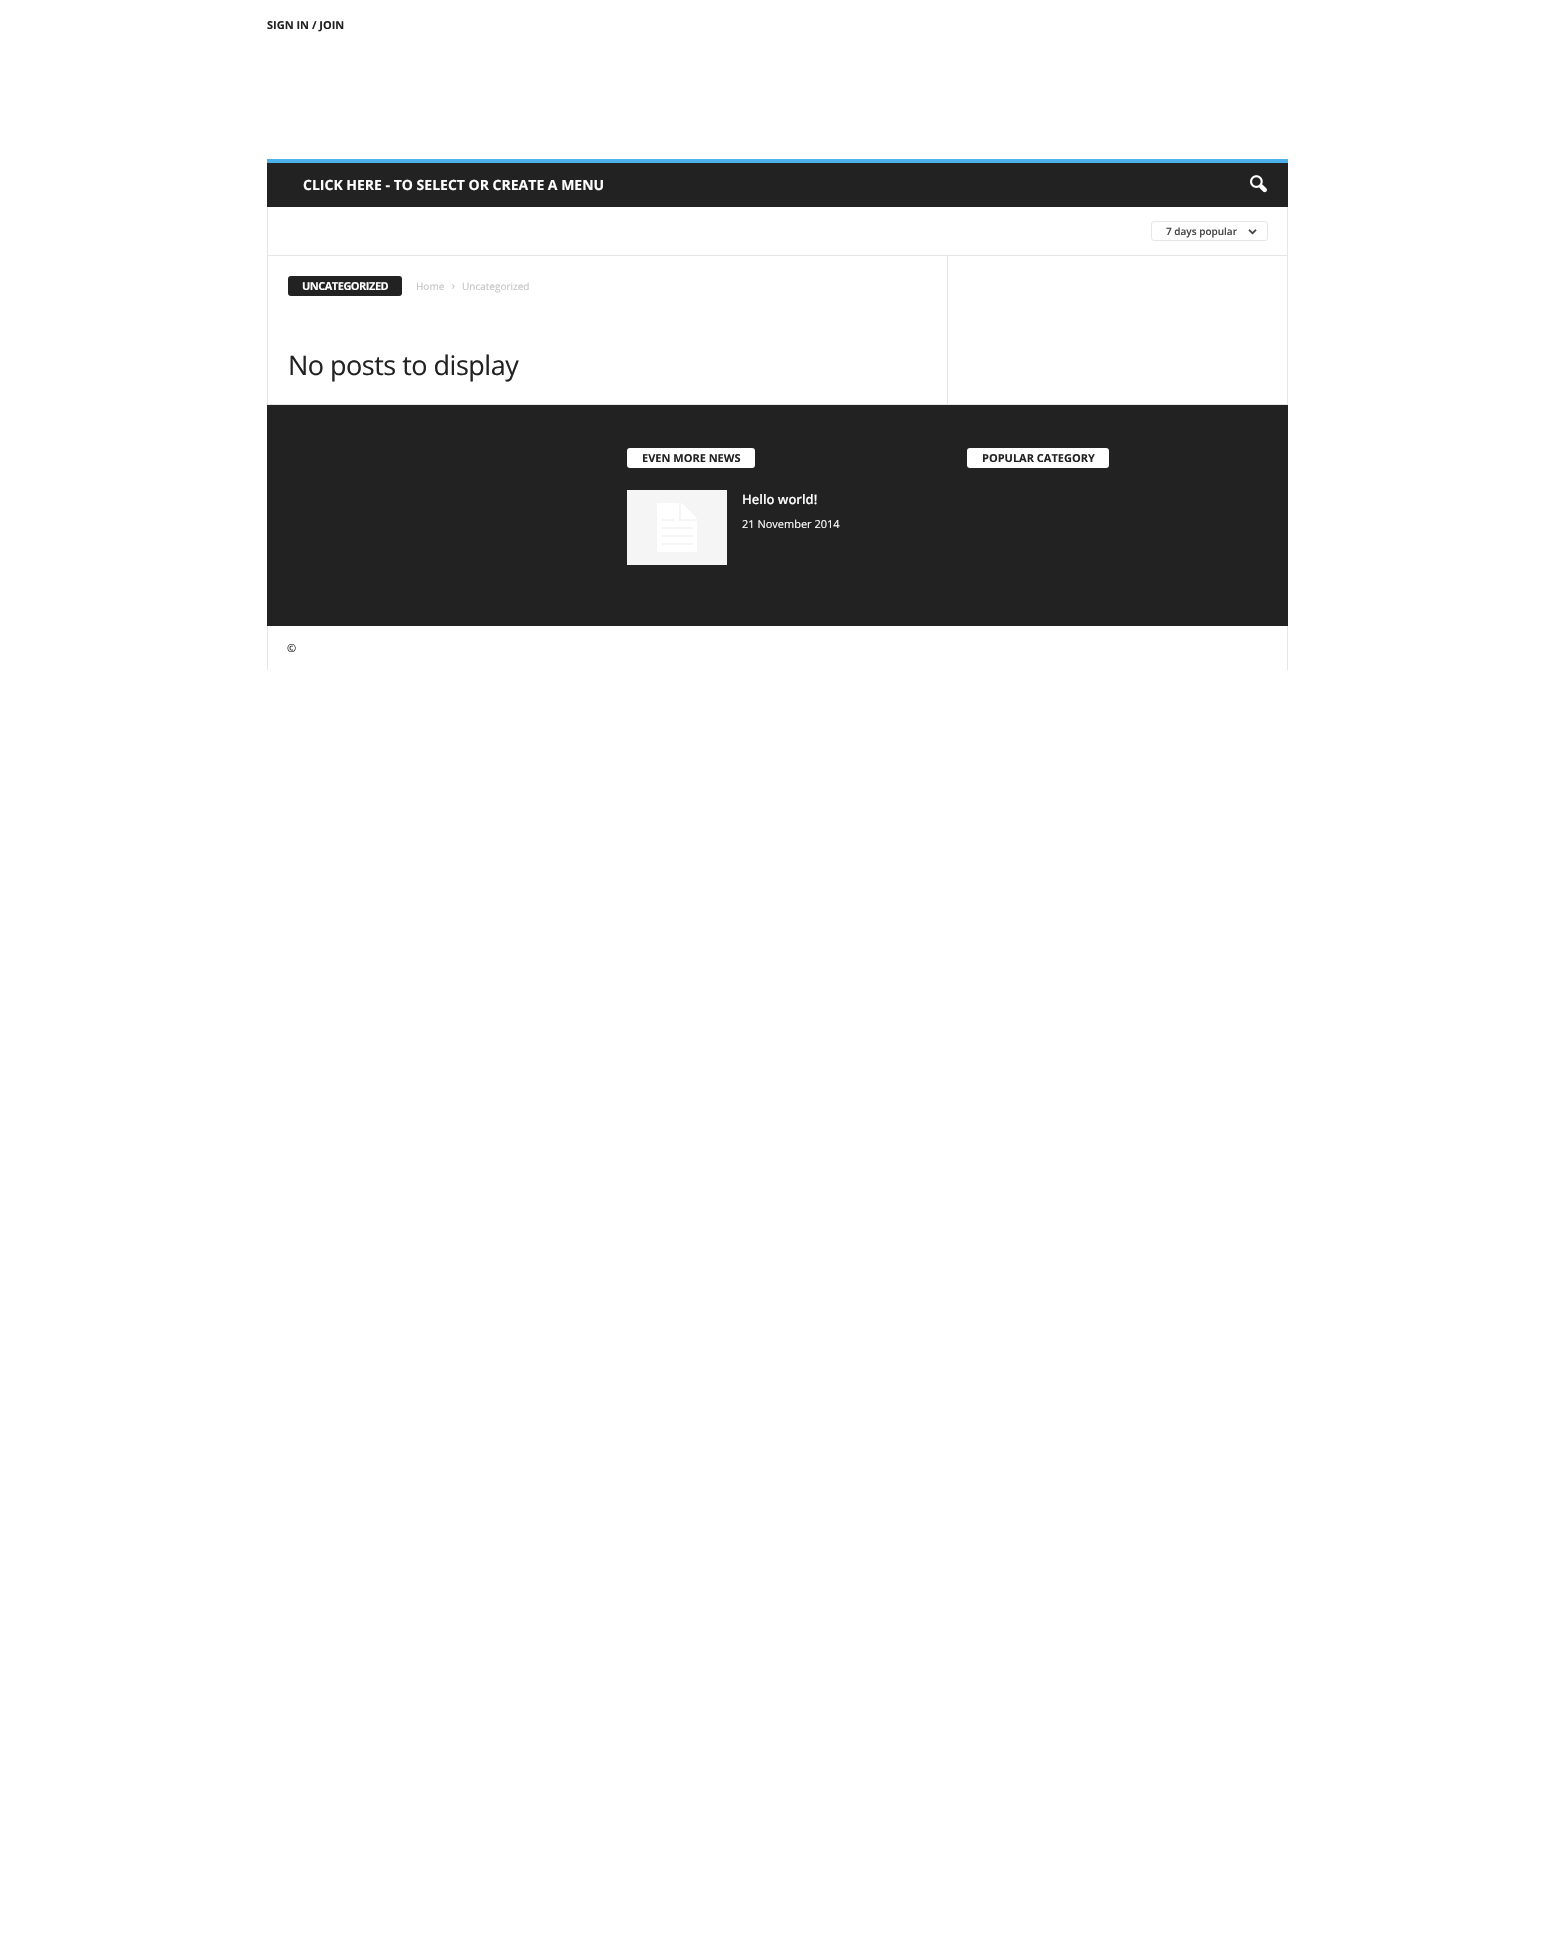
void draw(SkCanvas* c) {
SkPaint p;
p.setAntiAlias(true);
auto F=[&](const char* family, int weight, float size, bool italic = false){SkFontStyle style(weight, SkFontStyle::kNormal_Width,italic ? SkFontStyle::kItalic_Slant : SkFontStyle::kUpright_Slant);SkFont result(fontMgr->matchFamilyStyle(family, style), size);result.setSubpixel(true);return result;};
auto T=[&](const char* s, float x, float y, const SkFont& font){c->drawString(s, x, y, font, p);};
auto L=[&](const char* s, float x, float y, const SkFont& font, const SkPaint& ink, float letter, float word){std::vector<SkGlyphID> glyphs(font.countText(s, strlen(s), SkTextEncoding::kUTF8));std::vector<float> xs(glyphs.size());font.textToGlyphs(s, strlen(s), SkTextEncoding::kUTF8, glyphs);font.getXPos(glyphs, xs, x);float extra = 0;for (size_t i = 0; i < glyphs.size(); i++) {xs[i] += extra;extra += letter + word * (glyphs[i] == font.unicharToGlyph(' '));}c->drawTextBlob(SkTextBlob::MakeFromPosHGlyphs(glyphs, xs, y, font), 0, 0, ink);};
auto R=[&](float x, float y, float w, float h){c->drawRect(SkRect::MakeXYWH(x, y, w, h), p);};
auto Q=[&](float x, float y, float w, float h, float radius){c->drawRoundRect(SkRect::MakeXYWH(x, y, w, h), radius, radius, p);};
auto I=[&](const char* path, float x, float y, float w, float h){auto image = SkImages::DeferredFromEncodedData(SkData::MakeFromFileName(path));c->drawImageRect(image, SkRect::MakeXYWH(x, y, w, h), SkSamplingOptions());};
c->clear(0xffffffff);
auto f1 = F("Open Sans",700,11);
p.setColor(0xff222222);
T("SIGN IN / JOIN",267,29,f1);
R(267,163,1021,44);
p.setColor(0xff4db2ec);
R(267,159,1021,4);
auto f2 = F("Open Sans",700,14);
p.setColor(0xffffffff);
T("CLICK HERE - TO SELECT OR CREATE A MENU",303,190,f2);
I("1.png",1250,175,17,18);
p.setStroke(true);
p.setStrokeWidth(1);
p.setColor(0xffe6e6e6);
c->drawRoundRect(SkRect::MakeXYWH(1151.5,221.5,116,19),2.5,2.5,p);
auto f3 = F("Open Sans",600,10);
p.setStroke(false);
p.setColor(0xff444444);
T("7 days popular",1166,235,f3);
I("2.png",1248,229,9,6);
p.setColor(0xffe6e6e6);
R(267,404,1021,1);
R(1287,207,1,197);
R(267,255,1021,1);
R(267,207,1,197);
p.setColor(0xff222222);
Q(288,276,114,20,3);
p.setColor(0xffffffff);
L("UNCATEGORIZED",302,290,f1,p,-.5,0);
auto f4 = F("Open Sans",400,10);
p.setColor(0xffc3c3c3);
T("Home",416,290,f4);
I("3.png",452,284,3,5);
T("Uncategorized",462,290,f4);
auto f5 = F("Open Sans",400,27);
p.setColor(0xff222222);
L("No posts to display",288,375,f5,p,-.5,0);
p.setColor(0xffe6e6e6);
R(947,256,1,148);
p.setColor(0xff222222);
R(267,405,1021,221);
p.setColor(0xffffffff);
Q(627,448,128,20,3);
p.setColor(0xff222222);
T("EVEN MORE NEWS",642,462,f1);
I("4.png",627,490,100,75);
auto f6 = F("Open Sans",600,13);
p.setColor(0xffffffff);
T("Hello world!",742,504,f6);
auto f7 = F("Open Sans",400,11);
T("21 November 2014",742,528,f7);
Q(967,448,142,20,3);
p.setColor(0xff222222);
T("POPULAR CATEGORY",982,462,f1);
p.setColor(0xffe6e6e6);
R(267,626,1,44);
p.setColor(0xff222222);
T("©",287,652,f7);
p.setColor(0xffe6e6e6);
R(1287,626,1,44);
}
